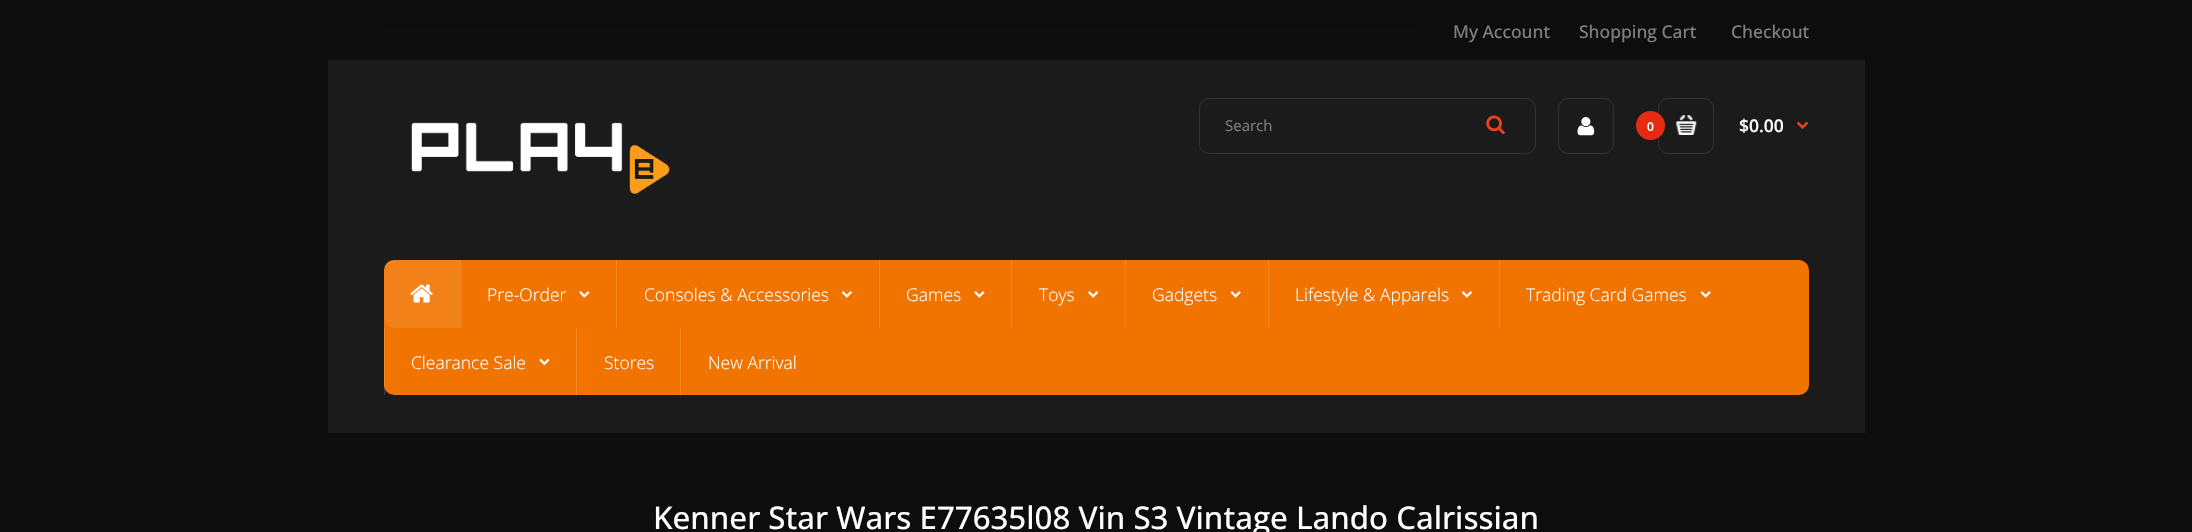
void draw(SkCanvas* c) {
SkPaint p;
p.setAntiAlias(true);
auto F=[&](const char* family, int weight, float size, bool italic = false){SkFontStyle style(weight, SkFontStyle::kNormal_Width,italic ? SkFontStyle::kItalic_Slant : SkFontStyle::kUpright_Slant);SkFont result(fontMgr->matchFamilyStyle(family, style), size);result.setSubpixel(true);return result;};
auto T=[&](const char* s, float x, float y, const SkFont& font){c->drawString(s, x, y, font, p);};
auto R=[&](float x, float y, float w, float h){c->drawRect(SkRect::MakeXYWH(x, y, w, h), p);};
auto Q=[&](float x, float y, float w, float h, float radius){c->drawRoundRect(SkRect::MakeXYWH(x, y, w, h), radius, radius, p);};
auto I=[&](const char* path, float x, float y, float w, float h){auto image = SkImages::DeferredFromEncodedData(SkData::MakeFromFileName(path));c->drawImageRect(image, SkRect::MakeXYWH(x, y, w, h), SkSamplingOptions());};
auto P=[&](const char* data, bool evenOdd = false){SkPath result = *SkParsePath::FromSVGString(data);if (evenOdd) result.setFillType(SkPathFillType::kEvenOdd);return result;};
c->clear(0xff0d0d0d);
p.setColor(0xff131313);
R(328,59,1537,1);
p.setColor(0xff0a0a0a);
R(384,25,1035,1);
auto f1 = F("Open Sans",500,17.5);
p.setColor(0xff808080);
T("My Account",1453,38,f1);
T("Shopping Cart",1579,38,f1);
T("Checkout",1731,38,f1);
p.setColor(0xff1b1b1b);
R(328,60,1537,373);
I("1.png",411,122,259,72);
p.setStroke(true);
p.setStrokeWidth(1);
p.setColor(0xff323232);
c->drawRoundRect(SkRect::MakeXYWH(1199.5,98.5,336,55),9.5,9.5,p);
auto f2 = F("Open Sans",400,15);
p.setStroke(false);
p.setColor(0xff808080);
T("Search",1225,131,f2);
I("2.png",1486,115,19,20);
p.setStroke(true);
p.setColor(0xff323232);
c->drawRoundRect(SkRect::MakeXYWH(1558.5,98.5,55,55),9.5,9.5,p);
I("3.png",1577,117,18,19);
c->drawRoundRect(SkRect::MakeXYWH(1658.5,98.5,55,55),9.5,9.5,p);
p.setStroke(false);
p.setColor(0xffe52b12);
c->drawCircle(1650.5,125.5,14.5,p);
auto f3 = F("Open Sans",600,12);
p.setColor(0xffffffff);
T("0",1647,131,f3);
I("4.png",1676,115,21,20);
auto f4 = F("Open Sans",600,17.5);
T("$0.00",1739,132,f4);
I("5.png",1796,121,13,8);
p.setColor(0xfff17300);
Q(384,260,1425,135,10);
p.setColor(0x1affffff);
c->drawPath(P("M394 260h66v68h-66c-5.5 0-10-4.5-10-10v-48c0-5.5 4.5-10 10-10z"),p);
I("6.png",410,284,23,19);
p.setColor(0xfff38826);
R(460,260,1,68);
auto f5 = F("Open Sans",300,17.5);
p.setColor(0xffffffff);
T("Pre-Order",487,301,f5);
I("7.png",579,291,11,7);
p.setColor(0xfff38826);
R(616,260,1,68);
p.setColor(0xffffffff);
T("Consoles & Accessories",644,301,f5);
I("8.png",841,291,11,7);
p.setColor(0xfff38826);
R(879,260,1,68);
p.setColor(0xffffffff);
T("Games",906,301,f5);
I("7.png",974,291,11,7);
p.setColor(0xfff38826);
R(1011,260,1,68);
p.setColor(0xffffffff);
T("Toys",1039,301,f5);
I("9.png",1088,291,11,7);
p.setColor(0xfff38826);
R(1125,260,1,68);
p.setColor(0xffffffff);
T("Gadgets",1152,301,f5);
I("10.png",1230,291,11,7);
p.setColor(0xfff38826);
R(1268,260,1,68);
p.setColor(0xffffffff);
T("Lifestyle & Apparels",1295,301,f5);
I("8.png",1461,291,11,7);
p.setColor(0xfff38826);
R(1499,260,1,68);
p.setColor(0xffffffff);
T("Trading Card Games",1526,301,f5);
I("10.png",1700,291,11,7);
p.setColor(0x26ffffff);
R(384,328,1,67);
p.setColor(0xffffffff);
T("Clearance Sale",411,369,f5);
I("11.png",539,358,11,8);
p.setColor(0xfff38826);
R(576,328,1,67);
p.setColor(0xffffffff);
T("Stores",604,369,f5);
p.setColor(0xfff38826);
R(680,328,1,67);
p.setColor(0xffffffff);
T("New Arrival",708,369,f5);
auto f6 = F("Open Sans",500,31.25);
T("Kenner Star Wars E77635l08 Vin S3 Vintage Lando Calrissian",653,529,f6);
}
